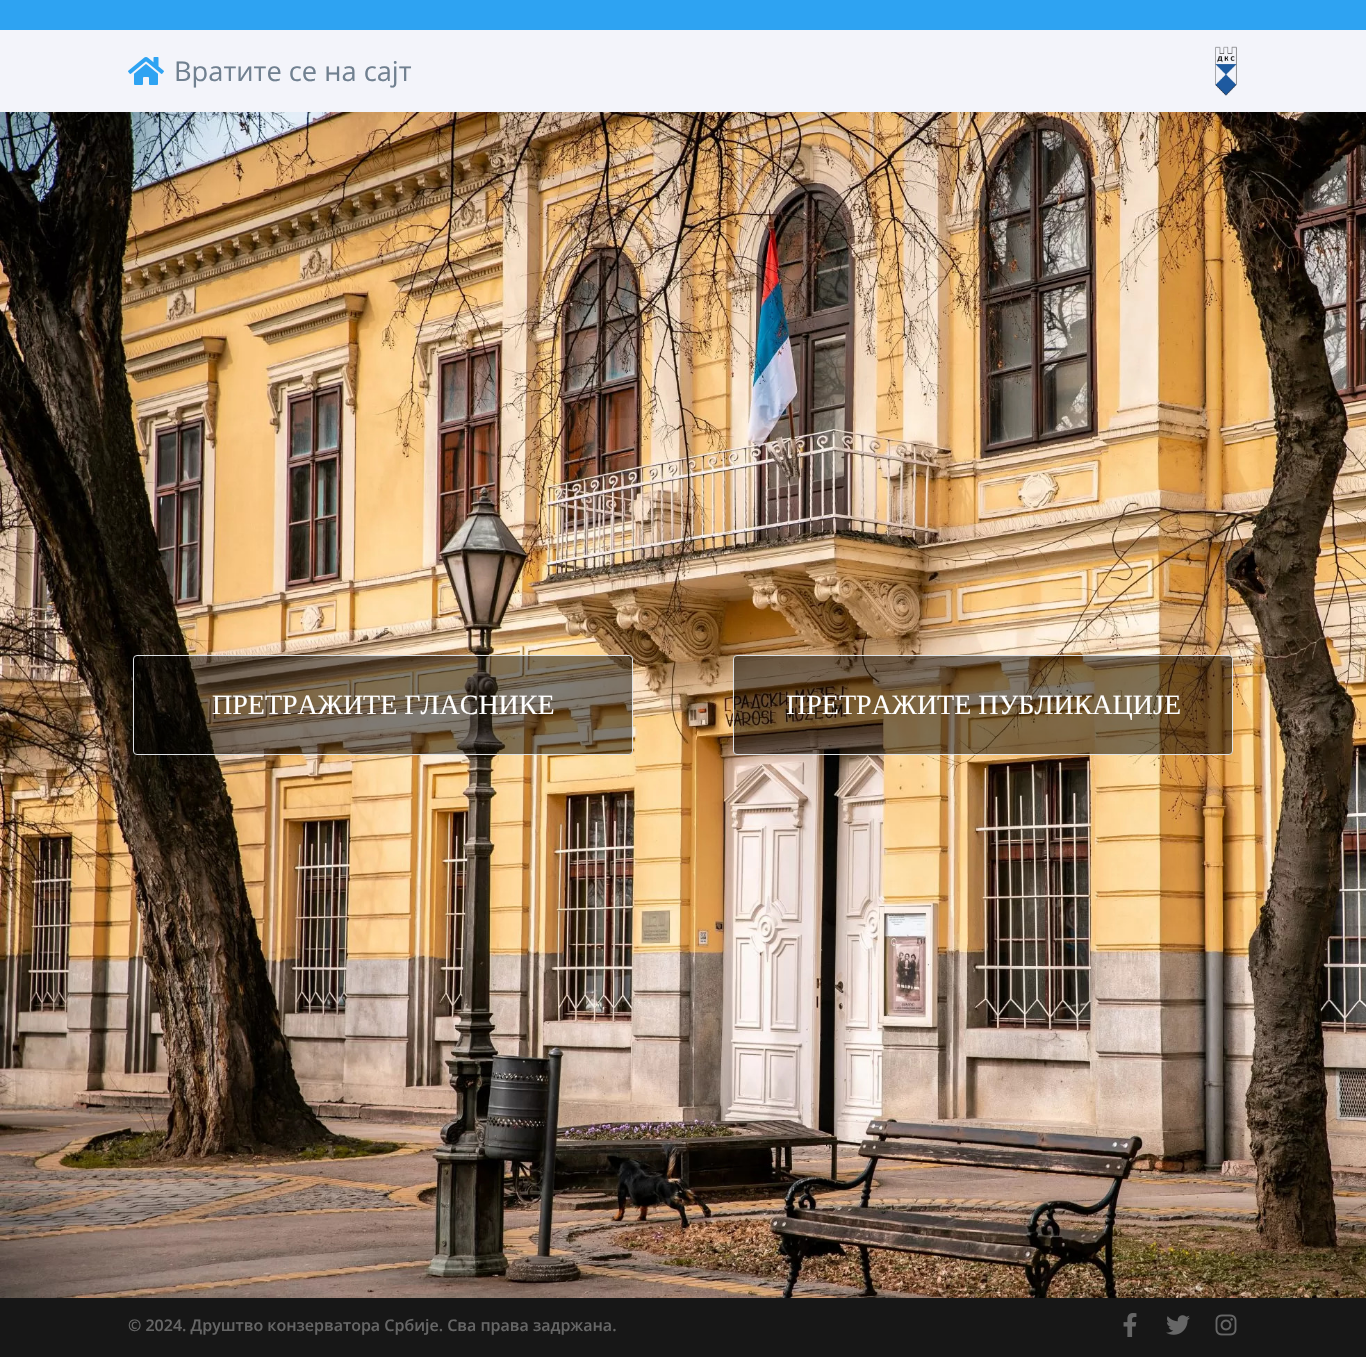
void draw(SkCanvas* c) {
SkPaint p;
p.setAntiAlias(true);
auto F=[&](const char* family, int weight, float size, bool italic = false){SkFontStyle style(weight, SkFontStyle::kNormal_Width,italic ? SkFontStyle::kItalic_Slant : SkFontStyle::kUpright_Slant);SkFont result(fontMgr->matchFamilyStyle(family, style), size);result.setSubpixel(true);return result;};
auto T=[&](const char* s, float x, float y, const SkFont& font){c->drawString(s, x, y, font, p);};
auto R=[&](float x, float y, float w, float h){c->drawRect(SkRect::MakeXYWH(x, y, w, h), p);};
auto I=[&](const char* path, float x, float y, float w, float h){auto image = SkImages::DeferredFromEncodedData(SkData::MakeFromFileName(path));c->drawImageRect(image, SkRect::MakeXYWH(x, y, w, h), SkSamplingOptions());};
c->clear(0xff2ea3f2);
p.setColor(0xfff3f4fa);
R(0,30,1366,82);
I("1.png",128,57,36,28);
auto f1 = F("Open Sans",400,27.25);
p.setColor(0xff708090);
T("Вратите се на сајт",174,81,f1);
I("2.png",1215,46,22,50);
I("3.png",0,112,1366,1186);
p.setColor(0x80000000);
c->drawRoundRect(SkRect::MakeXYWH(133.5,655.5,499,99),3.5,3.5,p);
p.setStroke(true);
p.setStrokeWidth(1);
p.setColor(0xffdee2e6);
c->drawRoundRect(SkRect::MakeXYWH(133.5,655.5,499,99),3.5,3.5,p);
auto f2 = F("Liberation Serif",400,28);
p.setStroke(false);
p.setColor(0xffffffff);
T("ПРЕТРАЖИТЕ ГЛАСНИКЕ",212,714,f2);
p.setColor(0x80000000);
c->drawRoundRect(SkRect::MakeXYWH(733.5,655.5,499,99),3.5,3.5,p);
p.setStroke(true);
p.setColor(0xffdee2e6);
c->drawRoundRect(SkRect::MakeXYWH(733.5,655.5,499,99),3.5,3.5,p);
p.setStroke(false);
p.setColor(0xffffffff);
T("ПРЕТРАЖИТЕ ПУБЛИКАЦИЈЕ",786,714,f2);
p.setColor(0xff171717);
R(0,1298,1366,59);
auto f3 = F("Open Sans",600,16);
p.setColor(0xff666666);
T("© 2024. Друштво конзерватора Србије. Сва права задржана.",128,1331,f3);
I("4.png",1123,1313,14,24);
I("5.png",1166,1315,24,20);
I("6.png",1215,1314,22,22);
}
